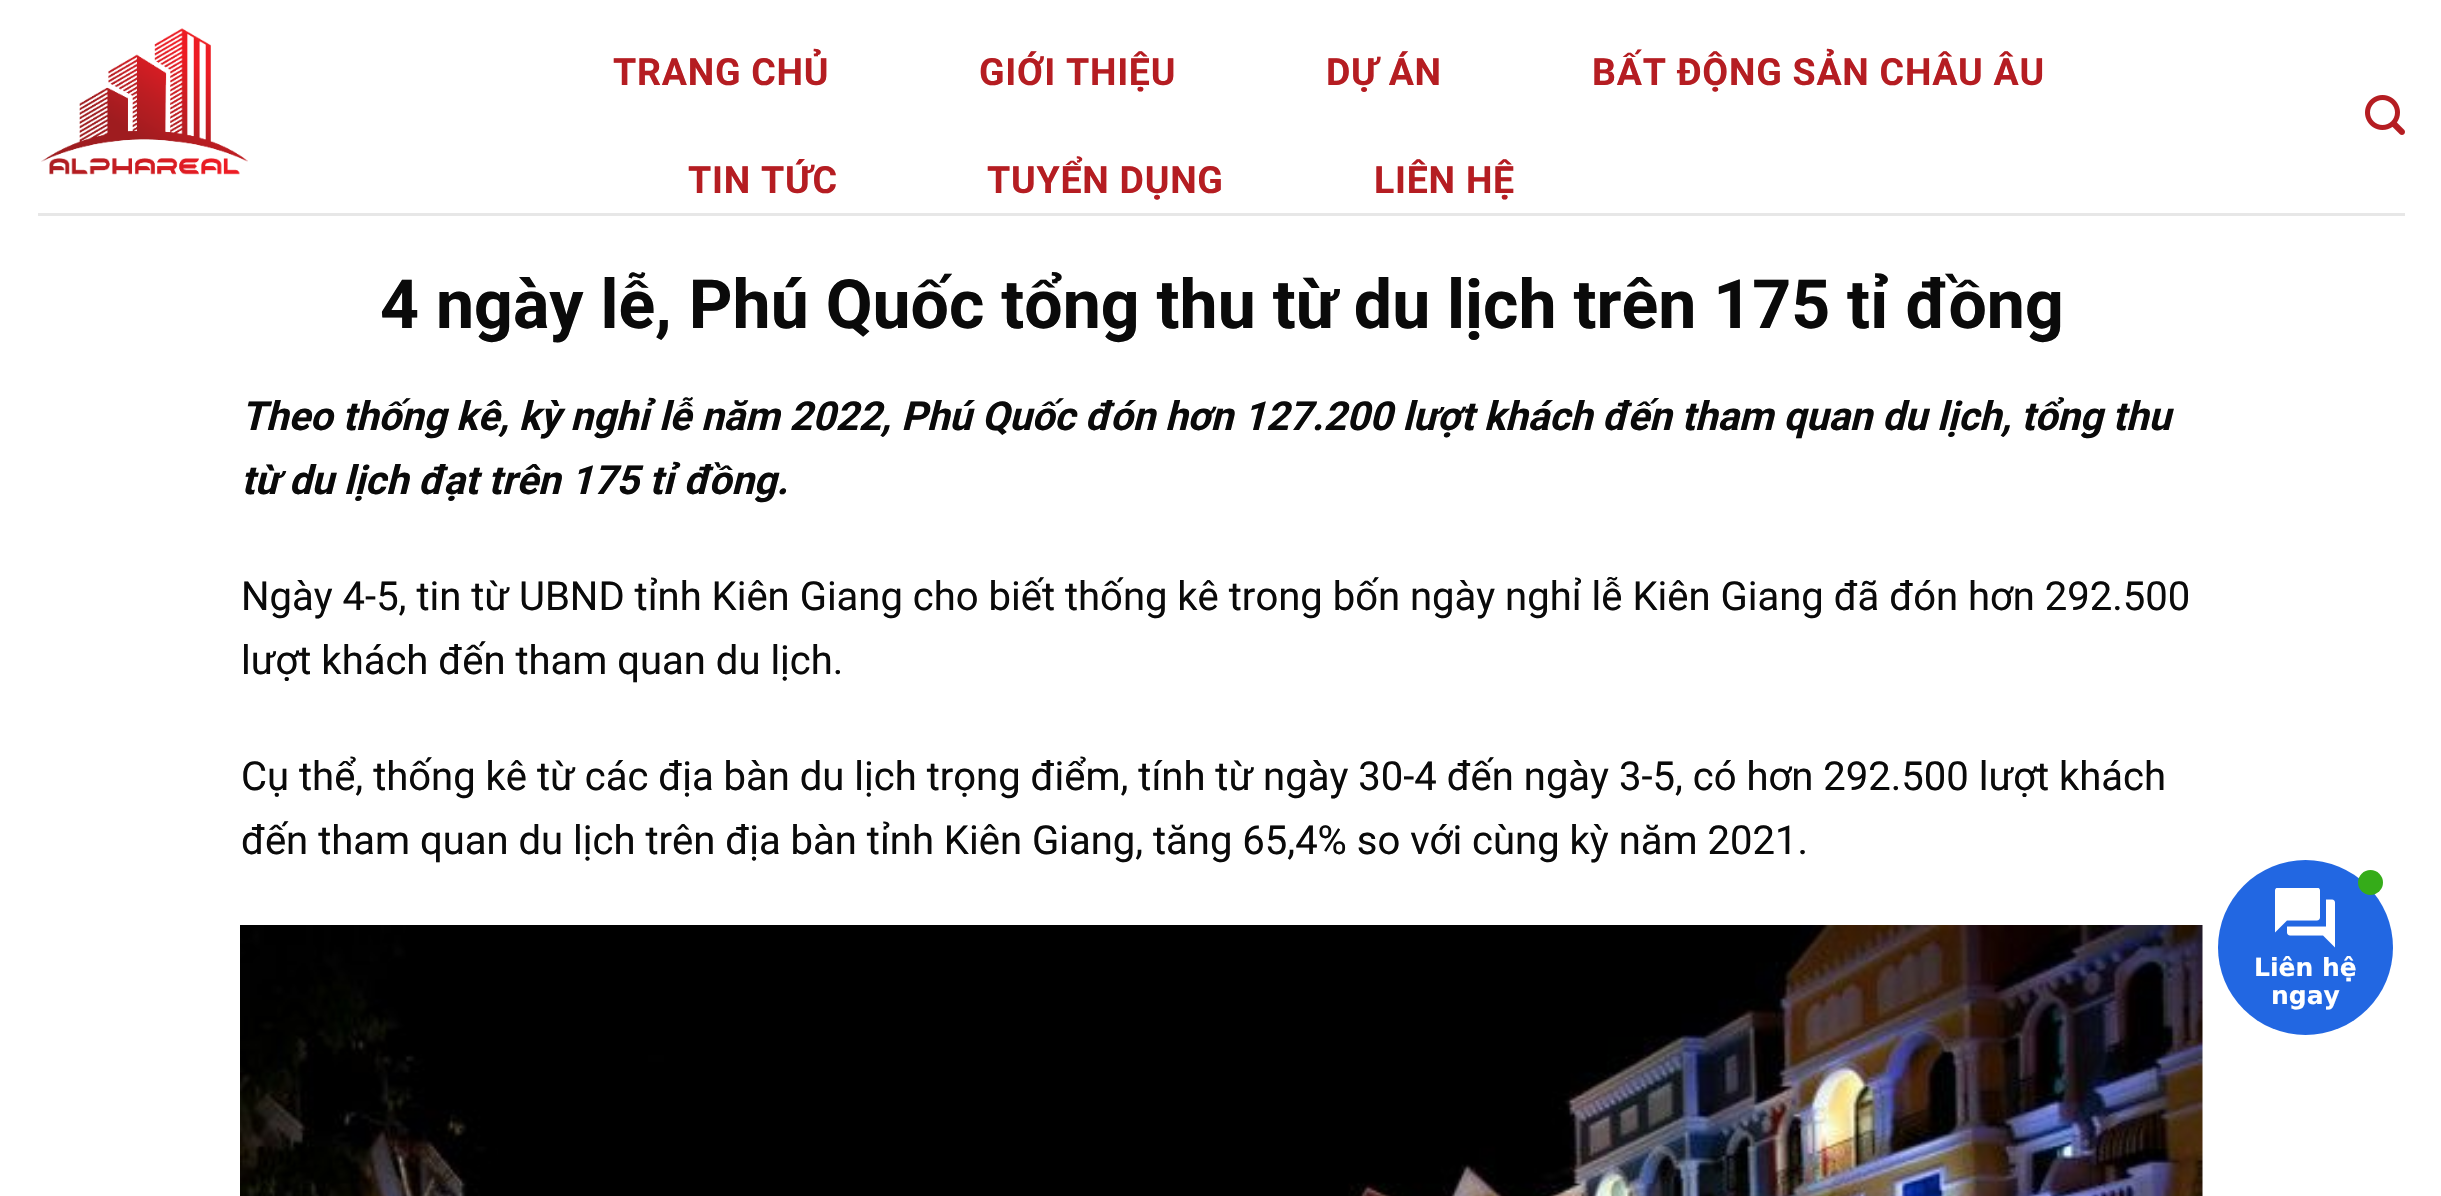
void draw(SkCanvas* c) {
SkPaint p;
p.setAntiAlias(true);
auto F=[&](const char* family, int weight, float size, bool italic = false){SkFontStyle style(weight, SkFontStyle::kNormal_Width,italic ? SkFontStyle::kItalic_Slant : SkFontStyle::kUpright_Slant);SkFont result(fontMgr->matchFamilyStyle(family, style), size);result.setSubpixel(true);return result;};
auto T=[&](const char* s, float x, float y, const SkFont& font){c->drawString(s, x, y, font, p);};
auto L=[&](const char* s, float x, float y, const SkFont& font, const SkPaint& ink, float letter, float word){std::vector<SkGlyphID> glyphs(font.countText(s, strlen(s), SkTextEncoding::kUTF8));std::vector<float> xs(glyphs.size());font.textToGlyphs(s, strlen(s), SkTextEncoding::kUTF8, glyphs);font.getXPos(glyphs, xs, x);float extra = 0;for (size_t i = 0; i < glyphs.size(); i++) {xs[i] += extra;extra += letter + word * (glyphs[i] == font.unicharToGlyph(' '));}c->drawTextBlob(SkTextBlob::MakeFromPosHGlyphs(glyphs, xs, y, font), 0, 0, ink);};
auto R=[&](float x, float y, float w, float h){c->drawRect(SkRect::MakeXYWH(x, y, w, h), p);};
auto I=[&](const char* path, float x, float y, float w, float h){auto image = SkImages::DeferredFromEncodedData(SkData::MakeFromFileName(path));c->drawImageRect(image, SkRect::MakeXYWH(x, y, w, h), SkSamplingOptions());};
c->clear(0xffffffff);
I("1.png",41,28,207,147);
auto f1 = F("Roboto",700,37.5);
p.setColor(0xffb51d22);
L("TRANG CHỦ",613,85,f1,p,.75,0);
L("GIỚI THIỆU",979,85,f1,p,.75,0);
L("DỰ ÁN",1326,85,f1,p,.75,0);
L("BẤT ĐỘNG SẢN CHÂU ÂU",1592,85,f1,p,.75,0);
L("TIN TỨC",688,193,f1,p,.75,0);
L("TUYỂN DỤNG",987,193,f1,p,.75,0);
L("LIÊN HỆ",1374,193,f1,p,.75,0);
I("2.png",2365,95,40,40);
p.setColor(0xffe7e7e7);
R(38,213,2367,3);
auto f2 = F("Roboto",700,68);
p.setColor(0xff0a0a0a);
T("4 ngày lễ, Phú Quốc tổng thu từ du lịch trên 175 tỉ đồng",380,328,f2);
auto f3 = F("Roboto",700,40,true);
T("Theo thống kê, kỳ nghỉ lễ năm 2022, Phú Quốc đón hơn 127.200 lượt khách đến tham quan du lịch, tổng thu",241,430,f3);
T("từ du lịch đạt trên 175 tỉ đồng.",241,494,f3);
auto f4 = F("Roboto",400,40);
T("Ngày 4-5, tin từ UBND tỉnh Kiên Giang cho biết thống kê trong bốn ngày nghỉ lễ Kiên Giang đã đón hơn 292.500",241,610,f4);
T("lượt khách đến tham quan du lịch.",241,674,f4);
T("Cụ thể, thống kê từ các địa bàn du lịch trọng điểm, tính từ ngày 30-4 đến ngày 3-5, có hơn 292.500 lượt khách",241,790,f4);
T("đến tham quan du lịch trên địa bàn tỉnh Kiên Giang, tăng 65,4% so với cùng kỳ năm 2021.",241,854,f4);
I("3.png",240,925,1963,271);
p.setColor(0xff2267e2);
c->drawCircle(2305.5,947.5,87.5,p);
p.setColor(0xff35ac19);
c->drawCircle(2370.5,882.5,12.5,p);
I("4.png",2275,888,60,60);
auto f5 = F("DejaVu Sans",700,25);
p.setColor(0xffffffff);
T("Liên hệ",2254,976,f5);
T("ngay",2271,1004,f5);
}
